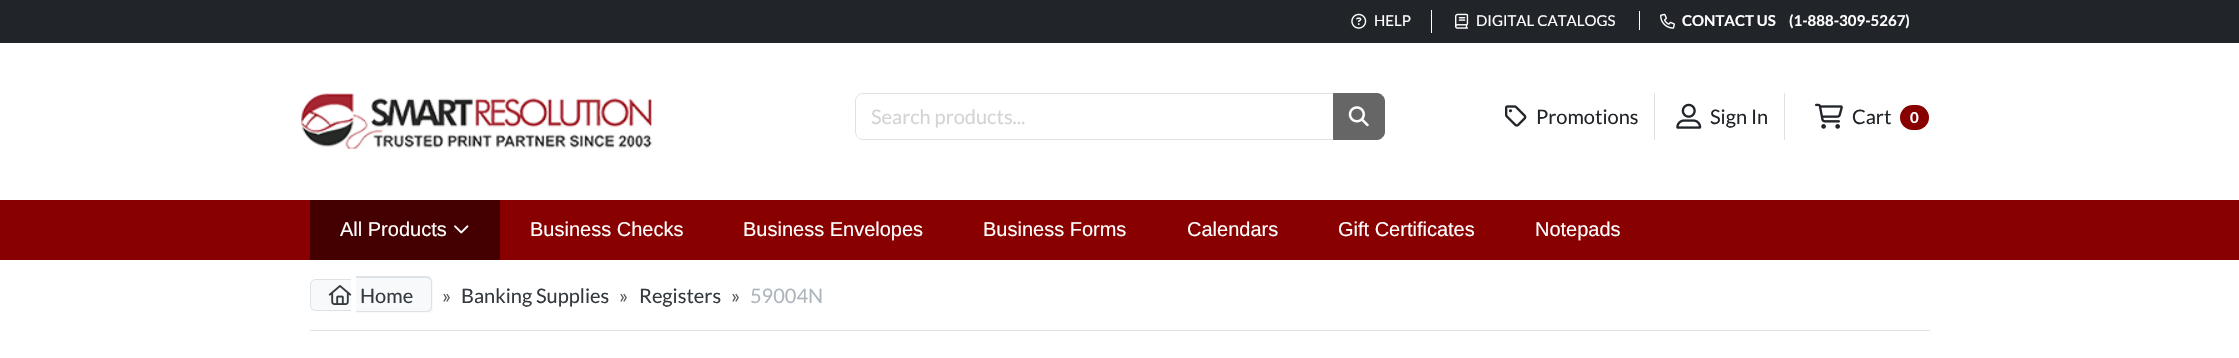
void draw(SkCanvas* c) {
SkPaint p;
p.setAntiAlias(true);
auto F=[&](const char* family, int weight, float size, bool italic = false){SkFontStyle style(weight, SkFontStyle::kNormal_Width,italic ? SkFontStyle::kItalic_Slant : SkFontStyle::kUpright_Slant);SkFont result(fontMgr->matchFamilyStyle(family, style), size);result.setSubpixel(true);return result;};
auto T=[&](const char* s, float x, float y, const SkFont& font){c->drawString(s, x, y, font, p);};
auto R=[&](float x, float y, float w, float h){c->drawRect(SkRect::MakeXYWH(x, y, w, h), p);};
auto Q=[&](float x, float y, float w, float h, float radius){c->drawRoundRect(SkRect::MakeXYWH(x, y, w, h), radius, radius, p);};
auto I=[&](const char* path, float x, float y, float w, float h){auto image = SkImages::DeferredFromEncodedData(SkData::MakeFromFileName(path));c->drawImageRect(image, SkRect::MakeXYWH(x, y, w, h), SkSamplingOptions());};
auto P=[&](const char* data, bool evenOdd = false){SkPath result = *SkParsePath::FromSVGString(data);if (evenOdd) result.setFillType(SkPathFillType::kEvenOdd);return result;};
c->clear(0xffffffff);
p.setColor(0xff212529);
R(0,0,2239,43);
p.setColor(0xffffffff);
R(1431,10,1,23);
I("1.png",1351,13,16,16);
auto f1 = F("Lato",400,15);
T("HELP",1374,26,f1);
R(1639,11,1,19);
I("2.png",1455,13,14,16);
T("DIGITAL CATALOGS",1476,26,f1);
I("3.png",1660,13,15,16);
auto f2 = F("Lato",700,15);
T("CONTACT US",1682,26,f2);
T("(1-888-309-5267)",1789,26,f2);
I("4.png",301,93,351,56);
p.setStroke(true);
p.setStrokeWidth(1);
p.setColor(0xffdee2e6);
c->drawPath(P("M863 93.5h470.5v46h-470.5c-4 0-7.5-3.5-7.5-7.5v-31c0-4 3.5-7.5 7.5-7.5z"),p);
auto f3 = F("Lato",400,20);
p.setStroke(false);
p.setColor(0xffd4d4d4);
T("Search products...",871,124,f3);
p.setColor(0xff666666);
c->drawPath(P("M1333.5 93.5h43.5c4 0 7.5 3.5 7.5 7.5v31c0 4-3.5 7.5-7.5 7.5h-43.5z"),p);
p.setStroke(true);
c->drawPath(P("M1333.5 93.5h43.5c4 0 7.5 3.5 7.5 7.5v31c0 4-3.5 7.5-7.5 7.5h-43.5z"),p);
I("5.png",1348,106,21,21);
p.setStroke(false);
p.setColor(0xffdee2e6);
R(1654,93,1,47);
I("6.png",1505,105,22,22);
p.setColor(0xff212529);
T("Promotions",1536,124,f3);
p.setColor(0xffdee2e6);
R(1784,93,1,47);
I("7.png",1676,103,26,26);
p.setColor(0xff212529);
T("Sign In",1710,124,f3);
I("8.png",1815,103,28,26);
T("Cart",1852,124,f3);
p.setColor(0xff880000);
Q(1900,105,29,25,12.5);
p.setColor(0xffffffff);
T("0",1910,123,f2);
p.setColor(0xff880000);
R(0,200,2239,60);
p.setColor(0xff440000);
R(310,200,190,60);
auto f4 = F("Liberation Sans",400,20);
p.setColor(0xffffffff);
T("All Products",340,236,f4);
I("9.png",454,225,15,9);
T("Business Checks",530,236,f4);
T("Business Envelopes",743,236,f4);
T("Business Forms",983,236,f4);
T("Calendars",1187,236,f4);
T("Gift Certificates",1338,236,f4);
T("Notepads",1535,236,f4);
p.setColor(0xffdee2e6);
R(310,330,1620,1);
p.setColor(0xfff8f9fa);
c->drawPath(P("M316 279h35v32h-35c-3.5 0-6-2.5-6-6v-20c0-3.5 2.5-6 6-6z"),p);
p.setColor(0xffdee2e6);
c->drawPath(P("M316 279h35v32h-35c-3 0-6-3-6-6v-20c0-3 3-6 6-6zm0 1h35v30h-35c-3 0-5-2-5-5v-20c0-3 2-5 5-5z",true),p);
p.setColor(0xfff8f9fa);
c->drawPath(P("M356 276h71c3.5 0 6 2.5 6 6v25c0 3.5-2.5 6-6 6h-71z"),p);
p.setColor(0xffdee2e6);
c->drawPath(P("M356 276h70c4 0 6 3 6 6v24c0 4-2 6-6 6h-70zm0 2h70c3 0 5 2 5 4v24c0 3-2 5-5 5h-70z",true),p);
I("10.png",328,285,24,20);
p.setColor(0xff343a40);
T("Home",360,303,f3);
p.setColor(0xff595c5f);
T("»",442,303,f3);
p.setColor(0xff343a40);
T("Banking Supplies",461,303,f3);
p.setColor(0xff595c5f);
T("»",619,303,f3);
p.setColor(0xff343a40);
T("Registers",639,303,f3);
p.setColor(0xff595c5f);
T("»",731,303,f3);
p.setColor(0xffadb5bd);
T("59004N",750,303,f3);
}
